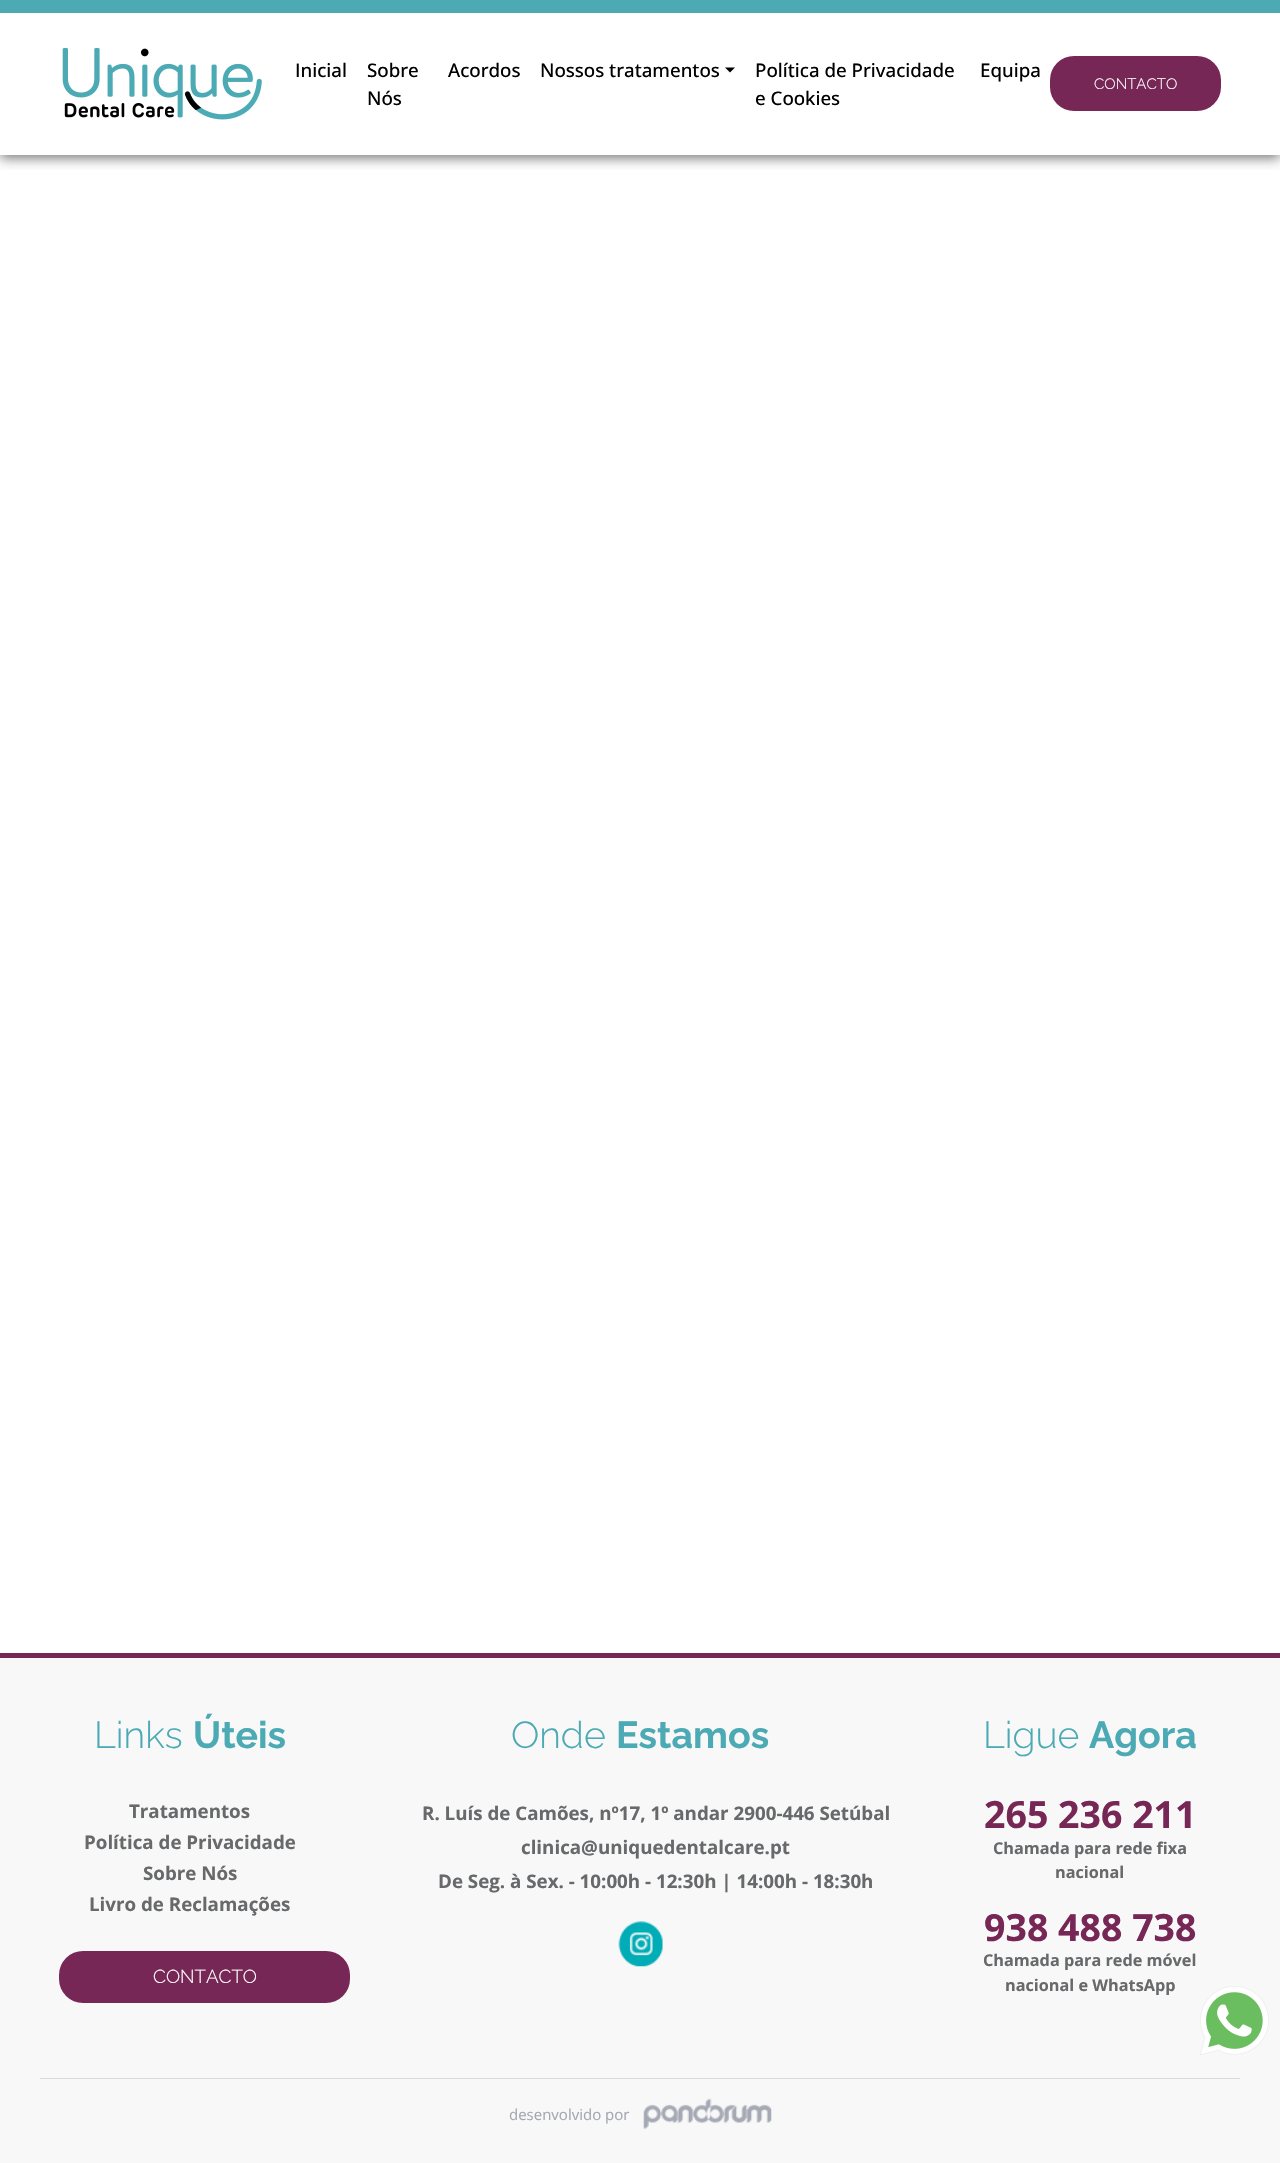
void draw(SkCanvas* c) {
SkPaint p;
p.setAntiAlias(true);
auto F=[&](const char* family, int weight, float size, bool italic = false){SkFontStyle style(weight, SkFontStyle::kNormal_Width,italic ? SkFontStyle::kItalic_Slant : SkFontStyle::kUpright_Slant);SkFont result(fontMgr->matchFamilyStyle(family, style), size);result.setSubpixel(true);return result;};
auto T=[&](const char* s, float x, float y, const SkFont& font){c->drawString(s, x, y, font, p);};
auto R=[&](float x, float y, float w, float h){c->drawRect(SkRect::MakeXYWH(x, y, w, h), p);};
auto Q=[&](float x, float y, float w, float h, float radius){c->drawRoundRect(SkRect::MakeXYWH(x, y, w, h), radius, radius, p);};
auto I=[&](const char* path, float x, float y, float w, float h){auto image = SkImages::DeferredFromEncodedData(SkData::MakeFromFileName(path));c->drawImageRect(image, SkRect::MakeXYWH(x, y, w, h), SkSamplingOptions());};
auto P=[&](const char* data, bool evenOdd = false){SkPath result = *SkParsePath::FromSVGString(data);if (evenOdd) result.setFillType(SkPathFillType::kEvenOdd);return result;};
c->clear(0xffffffff);
c->save();
c->clipRect(SkRect::MakeXYWH(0,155,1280,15));
p.setColor(0xff767676);
p.setMaskFilter(SkMaskFilter::MakeBlur(kNormal_SkBlurStyle, 6));
c->drawRect(SkRect::MakeXYWH(0,3,1280,155),p);
p.setMaskFilter(nullptr);
c->restore();
p.setColor(0xff4baab3);
R(0,0,1280,13);
I("1.png",62,48,200,72);
auto f1 = F("Open Sans",500,18.75);
p.setColor(0xff000000);
T("Inicial",295,77,f1);
T("Sobre",367,77,f1);
T("Nós",367,105,f1);
T("Acordos",448,77,f1);
T("Nossos tratamentos",540,77,f1);
c->drawPath(P("M725 67.5h10l-5 5z"),p);
T("Política de Privacidade",755,77,f1);
T("e Cookies",755,105,f1);
T("Equipa",980,77,f1);
p.setColor(0xff772755);
Q(1050,56,171,55,24);
auto f2 = F("Raleway",300,15);
p.setColor(0xffffffff);
T("CONTACTO",1094,89,f2);
p.setColor(0xff772755);
R(0,1653,1280,5);
p.setColor(0xfff8f8f8);
R(0,1658,1280,505);
auto f3 = F("Raleway",300,37.5);
p.setColor(0xff4baab3);
T("Links",94,1748,f3);
auto f4 = F("Raleway",700,37.5);
T("Úteis",193,1748,f4);
auto f5 = F("Open Sans",700,18.75);
p.setColor(0xff67696b);
T("Tratamentos",129,1818,f5);
T("Política de Privacidade",84,1849,f5);
T("Sobre Nós",143,1880,f5);
T("Livro de Reclamações",89,1911,f5);
p.setColor(0xff772755);
Q(59,1951,291,52,24);
auto f6 = F("Raleway",300,18.75);
p.setColor(0xffffffff);
T("CONTACTO",153,1983,f6);
p.setColor(0xff4baab3);
T("Onde",511,1748,f3);
T("Estamos",616,1748,f4);
p.setColor(0xff67696b);
T("R. Luís de Camões, nº17, 1º andar 2900-446 Setúbal",422,1820,f5);
T("clinica@uniquedentalcare.pt",521,1854,f5);
T("De Seg. à Sex. - 10:00h - 12:30h | 14:00h - 18:30h",438,1888,f5);
I("2.png",618,1921,45,46);
p.setColor(0xff4baab3);
T("Ligue",983,1748,f3);
T("Agora",1089,1748,f4);
auto f7 = F("Open Sans",700,37.5);
p.setColor(0xff772755);
T("265 236 211",984,1828,f7);
auto f8 = F("Open Sans",700,16.25);
p.setColor(0xff67696b);
T("Chamada para rede fixa",993,1854,f8);
T("nacional",1055,1878,f8);
p.setColor(0xff772755);
T("938 488 738",984,1941,f7);
p.setColor(0xff67696b);
T("Chamada para rede móvel",983,1966,f8);
T("nacional e WhatsApp",1005,1991,f8);
p.setColor(0xffd8d9dc);
R(40,2078,1200,1);
auto f9 = F("Open Sans",400,15);
p.setColor(0xffa4a7b1);
T("desenvolvido por",509,2120,f9);
I("3.png",643,2098,129,31);
I("4.png",1200,1986,69,69);
}
